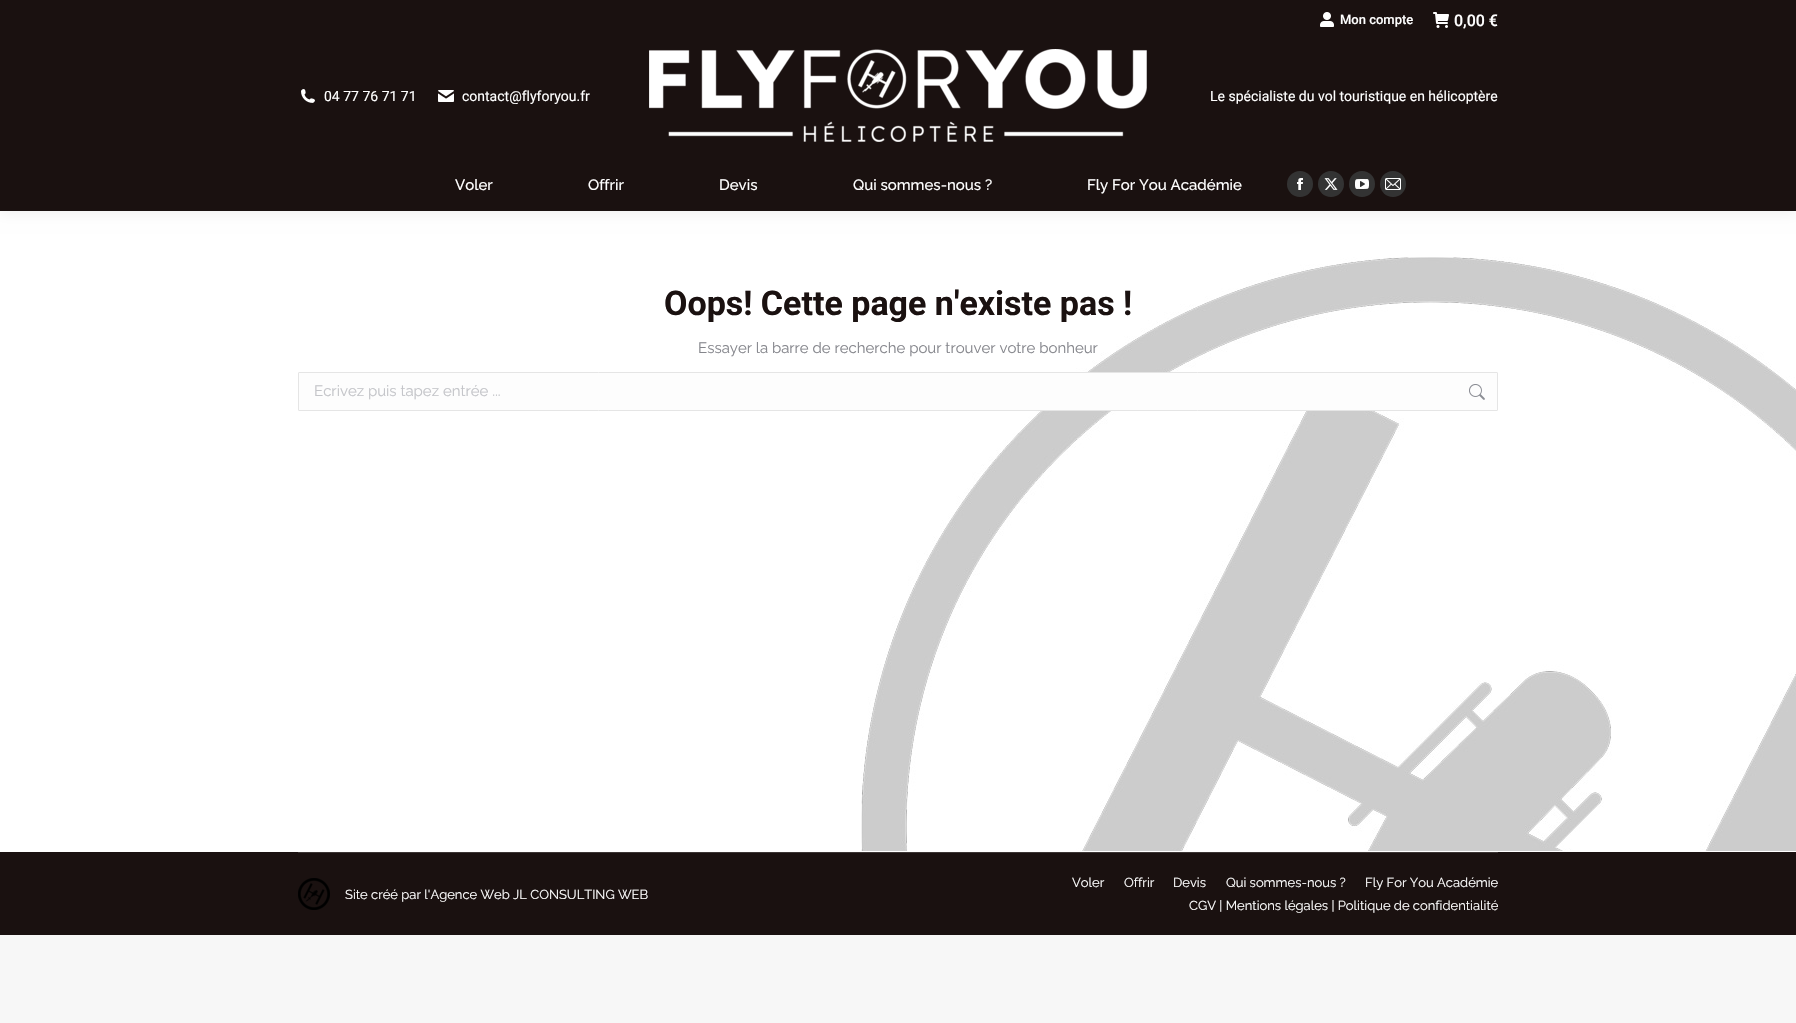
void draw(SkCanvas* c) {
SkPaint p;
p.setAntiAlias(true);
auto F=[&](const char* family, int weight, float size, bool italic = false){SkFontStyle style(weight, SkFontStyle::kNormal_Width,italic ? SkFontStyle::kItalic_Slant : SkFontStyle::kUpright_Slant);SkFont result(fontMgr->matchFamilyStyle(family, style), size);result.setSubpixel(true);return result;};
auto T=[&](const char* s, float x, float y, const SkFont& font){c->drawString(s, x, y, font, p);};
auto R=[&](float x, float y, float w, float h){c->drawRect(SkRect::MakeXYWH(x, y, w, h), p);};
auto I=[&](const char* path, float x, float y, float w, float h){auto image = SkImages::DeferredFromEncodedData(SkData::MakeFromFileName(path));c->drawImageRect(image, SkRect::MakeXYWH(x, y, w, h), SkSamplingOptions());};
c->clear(0xfff7f7f7);
p.setColor(0xffffffff);
R(0,211,1796,641);
I("1.png",861,257,935,594);
p.setColor(0x12000000);
p.setMaskFilter(SkMaskFilter::MakeBlur(kNormal_SkBlurStyle, 7.5));
c->drawRect(SkRect::MakeXYWH(-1,-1,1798,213),p);
p.setMaskFilter(nullptr);
p.setColor(0xff1a1110);
R(0,0,1796,211);
I("2.png",1320,12,14,15);
auto f1 = F("Roboto",500,13);
p.setColor(0xffffffff);
T("Mon compte",1340,24,f1);
I("3.png",1433,12,16,16);
auto f2 = F("Roboto",500,16);
T("0,00 €",1454,26,f2);
I("4.png",301,89,14,14);
auto f3 = F("Roboto",400,14);
T("04 77 76 71 71",324,101,f3);
I("5.png",438,90,16,12);
T("contact@flyforyou.fr",462,101,f3);
I("6.png",649,49,498,93);
T("Le spécialiste du vol touristique en hélicoptère",1210,101,f3);
auto f4 = F("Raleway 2",100,15);
T("Voler",455,190,f4);
T("Offrir",588,190,f4);
T("Devis",719,190,f4);
T("Qui sommes-nous ?",853,190,f4);
T("Fly For You Académie",1087,190,f4);
p.setColor(0xff333333);
c->drawCircle(1300,184,13,p);
I("7.png",1297,178,6,12);
c->drawCircle(1331,184,13,p);
I("8.png",1324,178,14,12);
c->drawCircle(1362,184,13,p);
I("9.png",1355,179,14,10);
c->drawCircle(1393,184,13,p);
I("10.png",1385,178,16,12);
auto f5 = F("Roboto",700,34);
p.setColor(0xff1a1110);
T("Oops! Cette page n'existe pas !",664,315,f5);
auto f6 = F("Raleway",100,15);
p.setColor(0xff85868c);
T("Essayer la barre de recherche pour trouver votre bonheur",698,353,f6);
p.setColor(0xfffdfdfd);
c->drawRoundRect(SkRect::MakeXYWH(298.5,372.5,1199,38),.5,.5,p);
p.setStroke(true);
p.setStrokeWidth(1);
p.setColor(0xffe5e5e5);
c->drawRoundRect(SkRect::MakeXYWH(298.5,372.5,1199,38),.5,.5,p);
p.setStroke(false);
p.setColor(0xffc4c5c9);
T("Ecrivez puis tapez entrée ...",314,396,f6);
I("11.png",1469,384,16,16);
p.setColor(0xff1a1110);
R(0,852,1796,83);
p.setColor(0xff3c3534);
R(298,852,1200,1);
I("12.png",298,878,32,32);
auto f7 = F("Raleway",100,13);
p.setColor(0xffffffff);
T("Site créé par l'Agence Web JL CONSULTING WEB",345,899,f7);
T("Voler",1072,887,f7);
T("Offrir",1124,887,f7);
T("Devis",1173,887,f7);
T("Qui sommes-nous ?",1226,887,f7);
T("Fly For You Académie",1365,887,f7);
T("CGV | Mentions légales | Politique de confidentialité",1189,910,f7);
}
